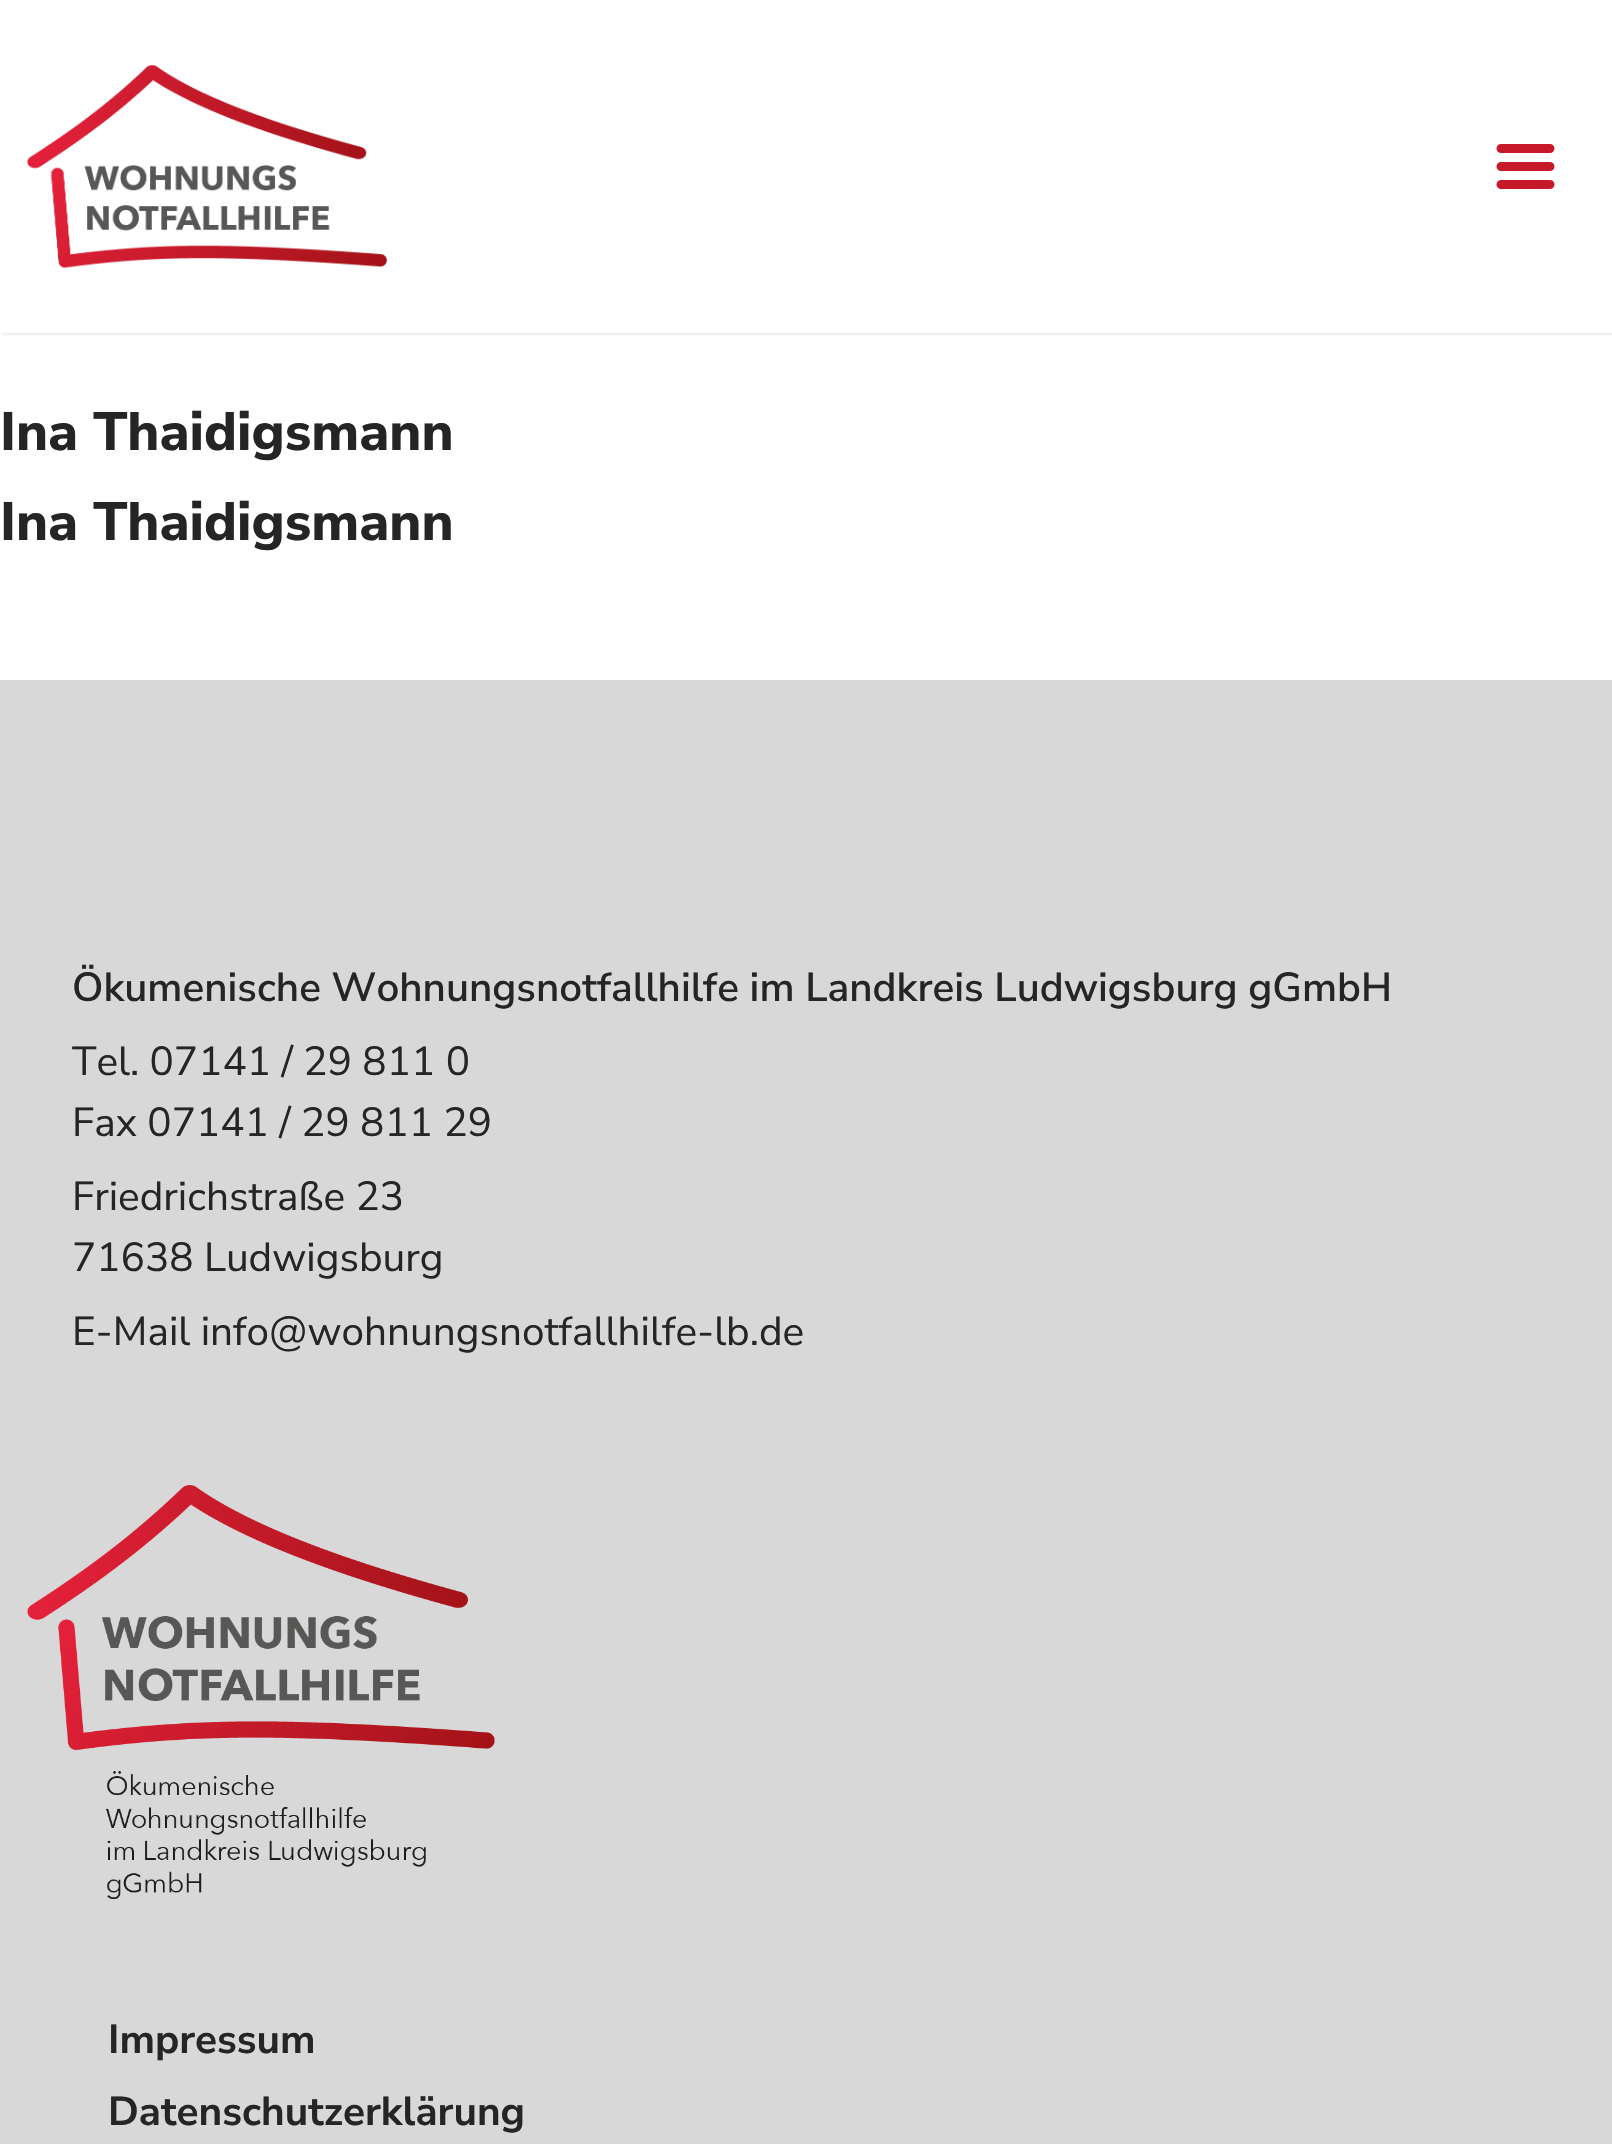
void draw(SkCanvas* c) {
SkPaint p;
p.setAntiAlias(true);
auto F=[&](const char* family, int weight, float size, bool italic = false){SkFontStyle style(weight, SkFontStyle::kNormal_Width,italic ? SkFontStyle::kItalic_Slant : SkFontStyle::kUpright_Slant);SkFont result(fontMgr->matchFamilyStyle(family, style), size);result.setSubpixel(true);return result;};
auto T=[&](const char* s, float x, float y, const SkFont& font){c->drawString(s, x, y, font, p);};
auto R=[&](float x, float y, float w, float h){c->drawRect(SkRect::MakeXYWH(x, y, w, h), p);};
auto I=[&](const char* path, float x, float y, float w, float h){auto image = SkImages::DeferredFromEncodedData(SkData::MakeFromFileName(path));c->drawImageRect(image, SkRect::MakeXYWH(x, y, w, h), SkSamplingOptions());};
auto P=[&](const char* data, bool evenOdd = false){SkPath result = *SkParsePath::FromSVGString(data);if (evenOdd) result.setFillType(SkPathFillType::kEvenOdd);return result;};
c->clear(0xffffffff);
c->save();
c->clipRect(SkRect::MakeXYWH(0,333,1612,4));
p.setColor(0xffededed);
p.setMaskFilter(SkMaskFilter::MakeBlur(kNormal_SkBlurStyle, 1));
c->drawRect(SkRect::MakeXYWH(2,2,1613,333),p);
p.setMaskFilter(nullptr);
c->restore();
I("1.png",27,65,360,204);
p.setStroke(true);
p.setStrokeWidth(9);
p.setStrokeCap(SkPaint::kRound_Cap);
p.setColor(0xffc61a2b);
c->drawPath(P("M1501 148.5h49m-49 18h49m-49 18h49"),p);
auto f1 = F("Nunito Sans",200,54);
p.setStroke(false);
p.setColor(0xff252525);
T("Ina Thaidigsmann",0,450,f1);
T("Ina Thaidigsmann",0,540,f1);
p.setColor(0xffd8d8d8);
R(0,680,1612,1464);
auto f2 = F("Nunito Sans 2",200,40.5);
p.setColor(0xff252525);
T("Ökumenische Wohnungsnotfallhilfe im Landkreis Ludwigsburg gGmbH",72,1001,f2);
auto f3 = F("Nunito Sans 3",200,40.5);
T("Tel. 07141 / 29 811 0",72,1075,f3);
T("Fax 07141 / 29 811 29",72,1136,f3);
T("Friedrichstraße 23",72,1210,f3);
T("71638 Ludwigsburg",72,1271,f3);
T("E-Mail info@wohnungsnotfallhilfe-lb.de",72,1345,f3);
I("2.png",27,1485,468,414);
auto f4 = F("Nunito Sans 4",200,40.5);
T("Impressum",108,2053,f4);
T("Datenschutzerklärung",108,2125,f4);
}
